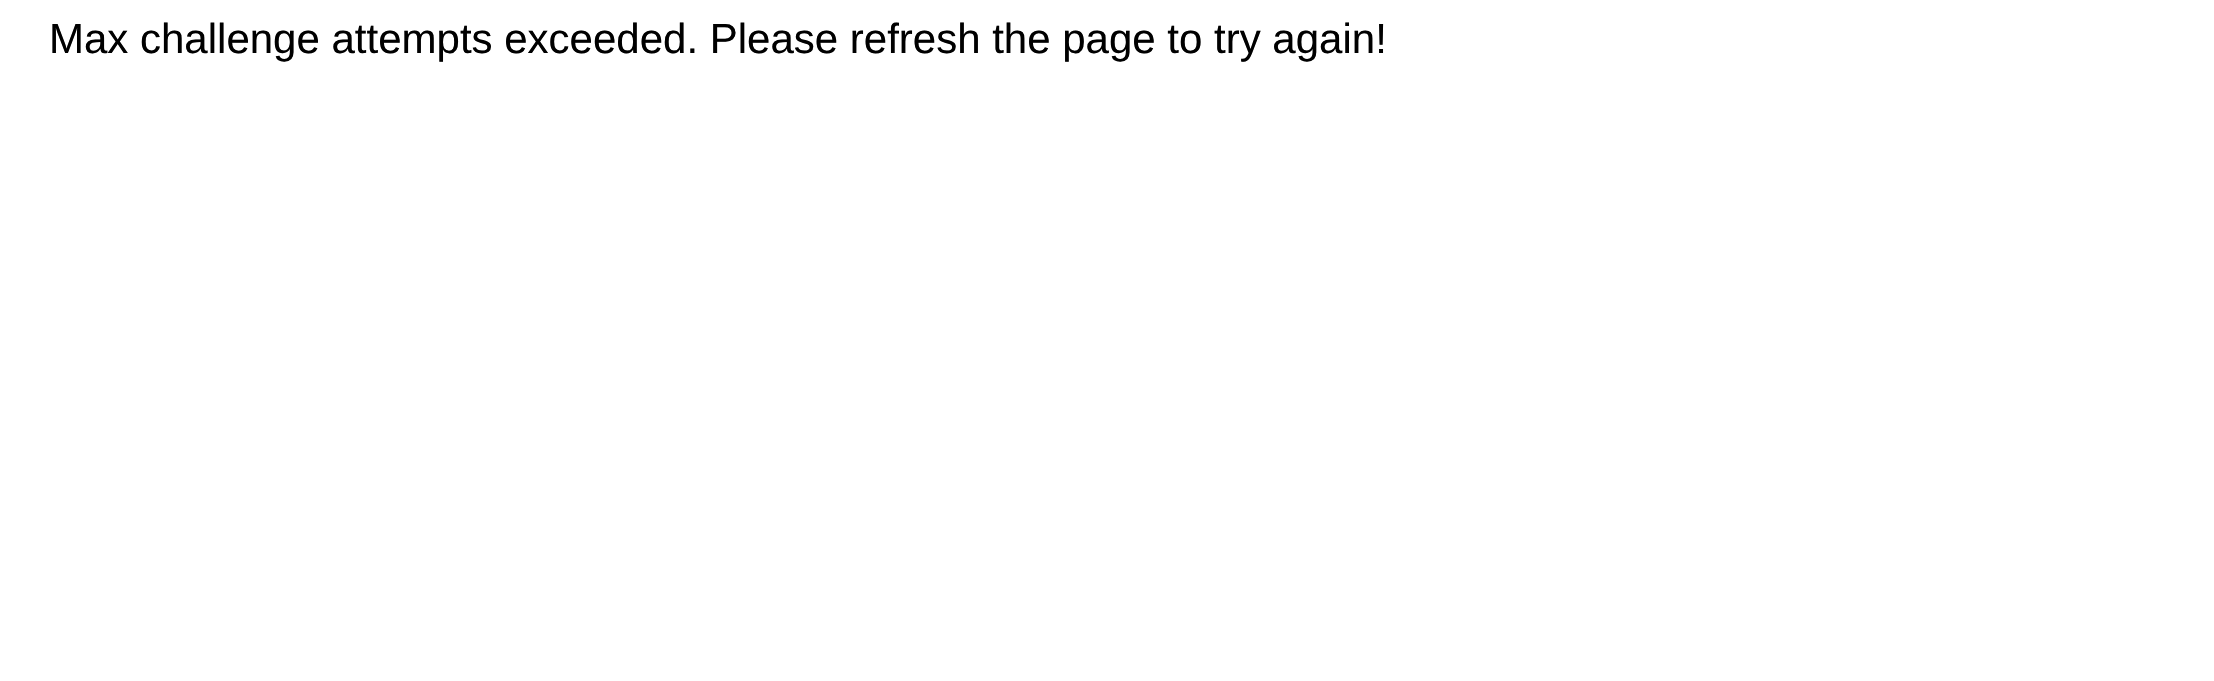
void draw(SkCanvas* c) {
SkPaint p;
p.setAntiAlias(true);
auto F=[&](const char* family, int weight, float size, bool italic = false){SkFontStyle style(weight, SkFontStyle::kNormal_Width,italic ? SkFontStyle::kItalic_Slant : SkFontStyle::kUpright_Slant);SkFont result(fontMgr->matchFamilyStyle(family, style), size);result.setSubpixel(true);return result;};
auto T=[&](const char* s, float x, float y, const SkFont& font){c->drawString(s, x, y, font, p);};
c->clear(0xffffffff);
auto f1 = F("Liberation Sans",400,42);
p.setColor(0xff000000);
T("Max challenge attempts exceeded. Please refresh the page to try again!",49,53,f1);
}
